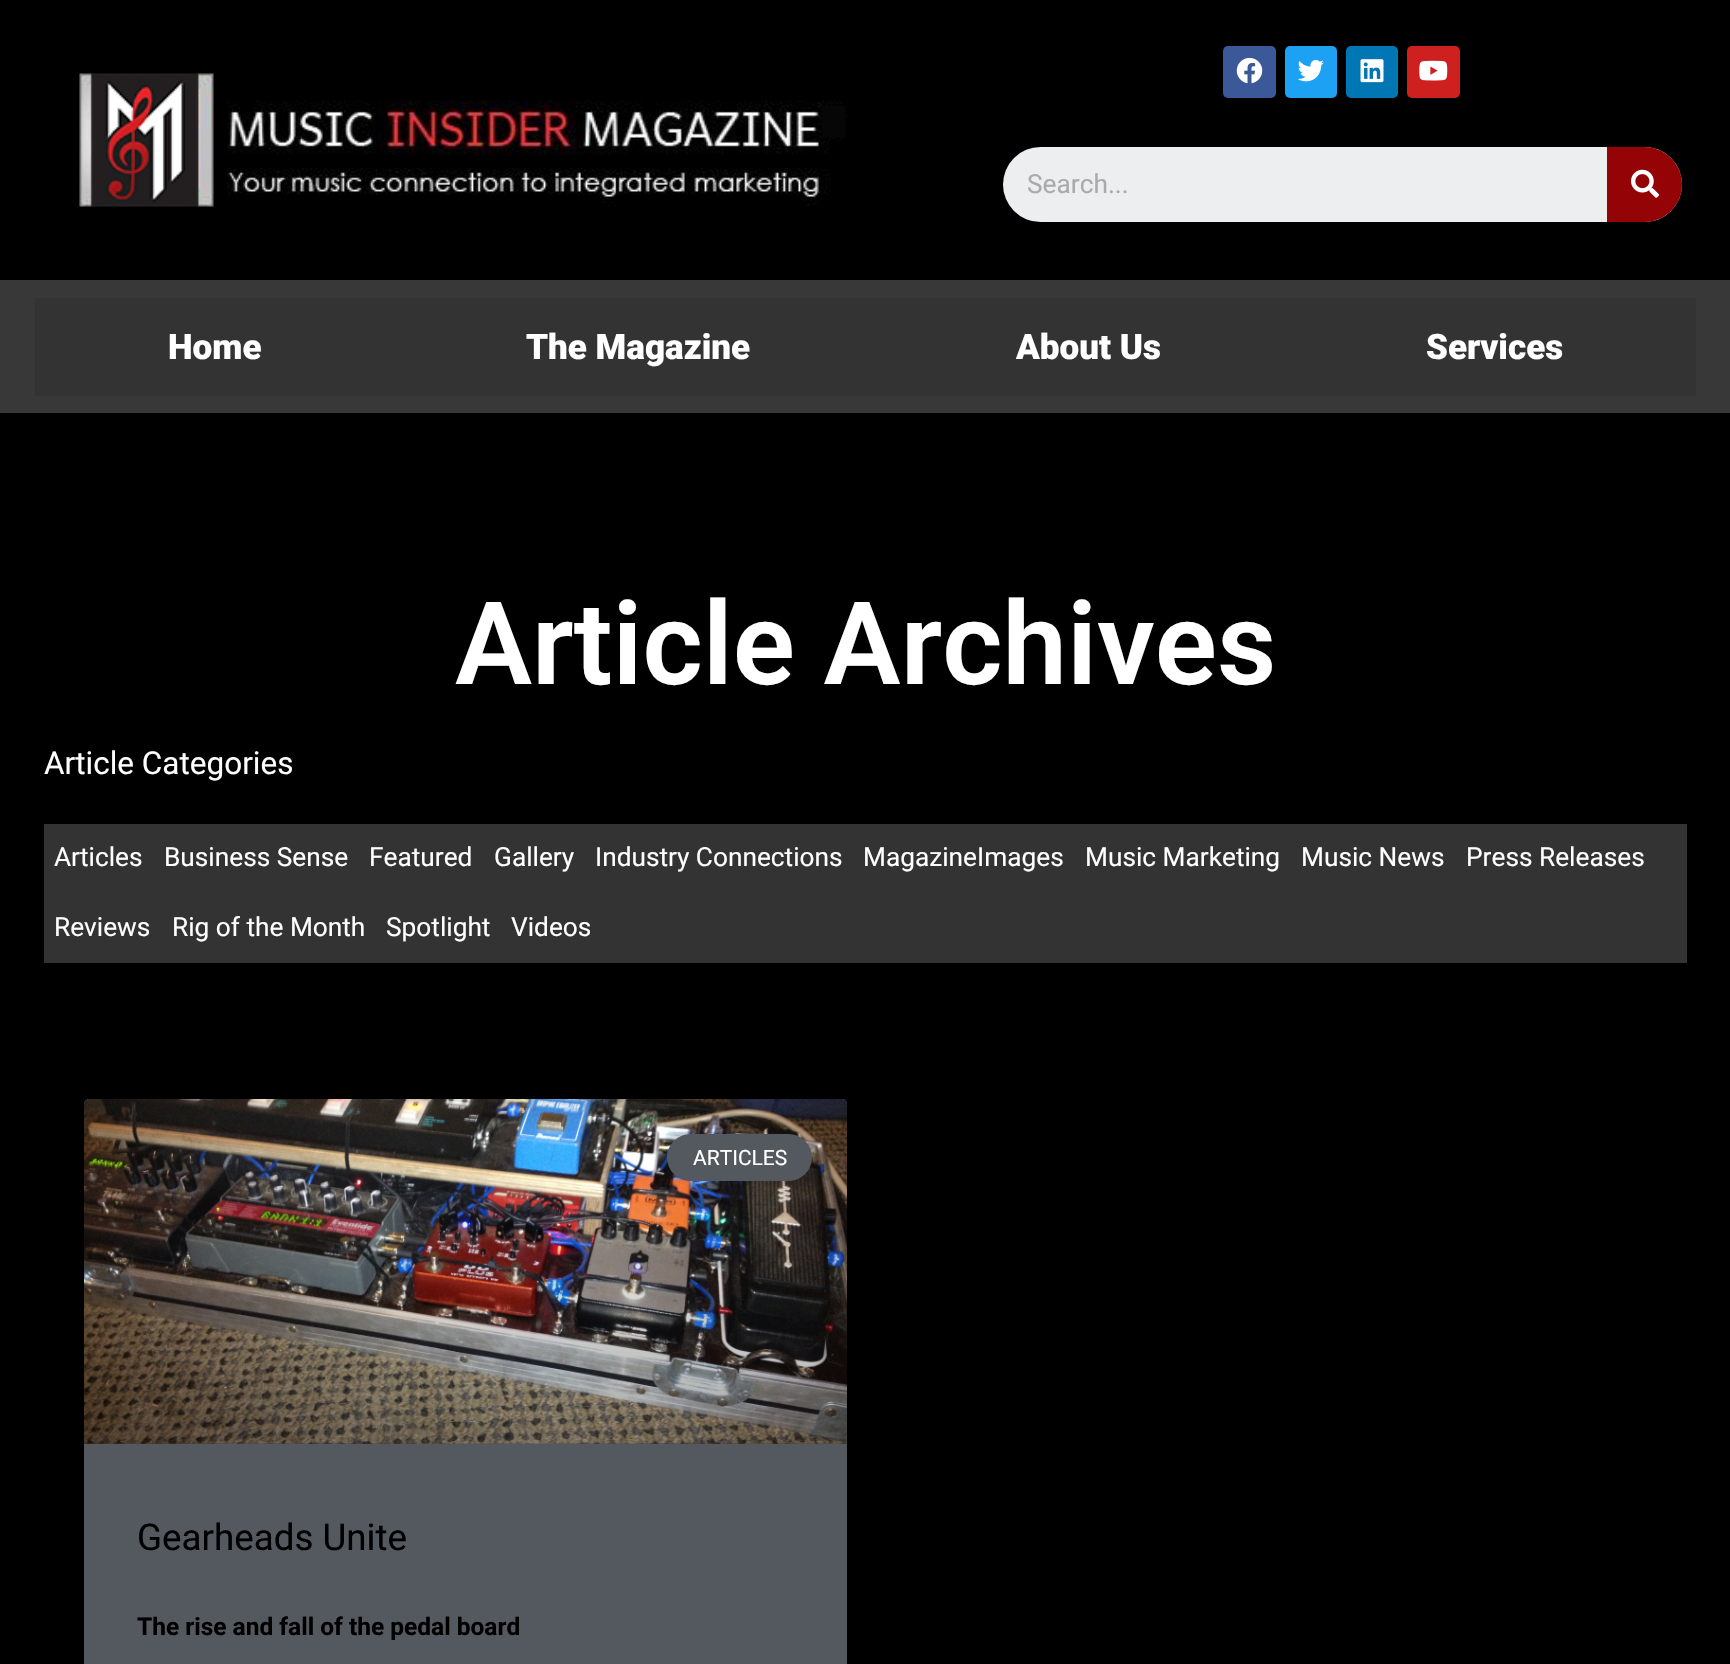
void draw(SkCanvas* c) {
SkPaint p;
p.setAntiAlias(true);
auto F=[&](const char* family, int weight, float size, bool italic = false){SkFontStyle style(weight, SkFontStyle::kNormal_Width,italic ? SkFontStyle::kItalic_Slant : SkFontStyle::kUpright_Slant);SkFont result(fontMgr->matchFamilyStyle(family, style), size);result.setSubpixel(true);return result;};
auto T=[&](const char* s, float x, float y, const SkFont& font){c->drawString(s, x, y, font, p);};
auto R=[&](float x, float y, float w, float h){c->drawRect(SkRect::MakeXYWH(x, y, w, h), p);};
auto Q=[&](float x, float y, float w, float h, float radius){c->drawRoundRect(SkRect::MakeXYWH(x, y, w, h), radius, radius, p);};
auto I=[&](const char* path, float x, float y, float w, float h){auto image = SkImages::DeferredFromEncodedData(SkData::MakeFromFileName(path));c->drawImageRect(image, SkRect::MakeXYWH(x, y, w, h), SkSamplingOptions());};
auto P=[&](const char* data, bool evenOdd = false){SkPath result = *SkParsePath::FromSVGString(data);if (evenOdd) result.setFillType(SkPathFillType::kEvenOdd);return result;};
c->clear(0xff000000);
I("1.png",79,73,768,134);
p.setColor(0xff3b5998);
Q(1223,46,53,52,5);
I("2.png",1236,57,27,27);
p.setColor(0xff1da1f2);
Q(1285,46,52,52,5);
I("3.png",1298,60,26,22);
p.setColor(0xff0077b5);
Q(1346,46,52,52,5);
I("4.png",1360,59,24,24);
p.setColor(0xffcd201f);
Q(1407,46,53,52,5);
I("5.png",1419,60,29,21);
p.setColor(0xffeceeef);
Q(1003,147,679,75,37.5);
auto f1 = F("Roboto",400,26.25);
p.setColor(0xffa9aaab);
T("Search...",1027,193,f1);
p.setColor(0xff940306);
c->drawPath(P("M1607 147h37.5c20.5 0 37.5 17 37.5 37.5c0 20.5-17 37.5-37.5 37.5h-37.5z"),p);
I("6.png",1631,169,28,29);
p.setColor(0xff383838);
R(0,280,1730,133);
p.setColor(0xff333333);
R(35,298,1661,98);
auto f2 = F("Roboto",900,35);
p.setColor(0xffffffff);
T("Home",168,359,f2);
T("The Magazine",526,359,f2);
T("About Us",1016,359,f2);
T("Services",1426,359,f2);
auto f3 = F("Roboto",600,115.5);
T("Article Archives",455,684,f3);
auto f4 = F("Roboto",400,31.5);
T("Article Categories",44,774,f4);
p.setColor(0xff333333);
R(44,824,1643,139);
p.setColor(0xffffffff);
T("Articles",54,866,f1);
T("Business Sense",164,866,f1);
T("Featured",369,866,f1);
T("Gallery",494,866,f1);
T("Industry Connections",595,866,f1);
T("MagazineImages",863,866,f1);
T("Music Marketing",1085,866,f1);
T("Music News",1301,866,f1);
T("Press Releases",1466,866,f1);
T("Reviews",54,936,f1);
T("Rig of the Month",172,936,f1);
T("Spotlight",386,936,f1);
T("Videos",511,936,f1);
p.setColor(0xff54595f);
Q(84,1099,763,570,5);
I("7.png",84,1099,763,345);
{
const SkColor colors[] = {0x59000000,0x00000000};
const float stops[] = {0,.75};
const SkPoint ends[] = {{466,1444}, {466,1099}};
p.setShader(SkGradientShader::MakeLinear(ends, colors, stops, 2, SkTileMode::kClamp));
p.setAlpha(255);
}
R(84,1201,763,243);
p.setShader(nullptr);
p.setColor(0xff54595f);
Q(667,1134,145,47,23.5);
auto f5 = F("Roboto",400,21);
p.setColor(0xffffffff);
T("ARTICLES",693,1165,f5);
auto f6 = F("Roboto",400,36.75);
p.setColor(0xff000000);
T("Gearheads Unite",137,1550,f6);
auto f7 = F("Roboto",700,24.5);
T("The rise and fall of the pedal board",137,1635,f7);
}
